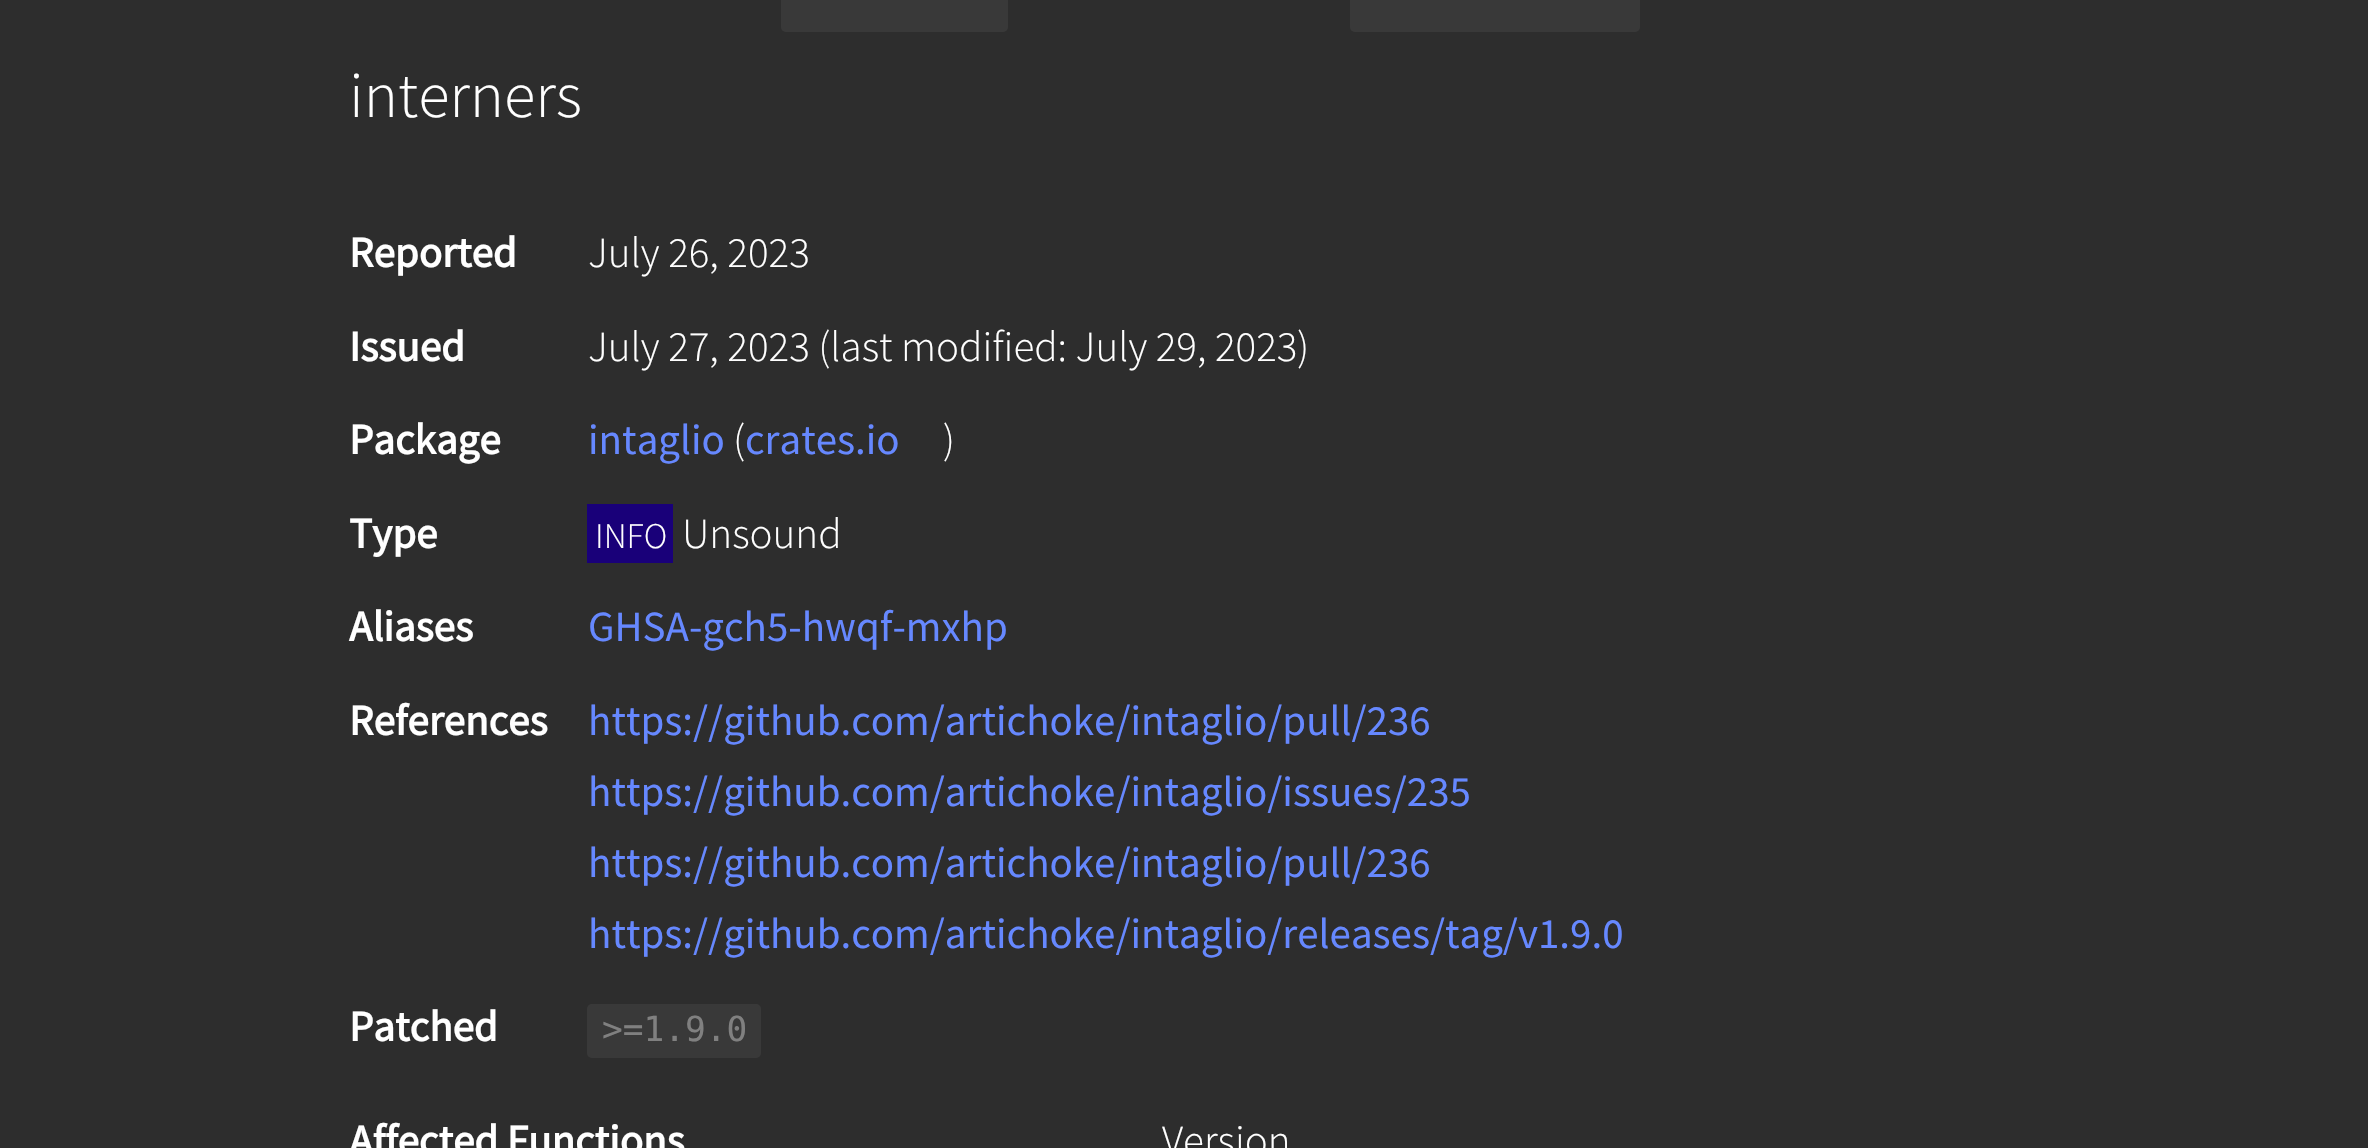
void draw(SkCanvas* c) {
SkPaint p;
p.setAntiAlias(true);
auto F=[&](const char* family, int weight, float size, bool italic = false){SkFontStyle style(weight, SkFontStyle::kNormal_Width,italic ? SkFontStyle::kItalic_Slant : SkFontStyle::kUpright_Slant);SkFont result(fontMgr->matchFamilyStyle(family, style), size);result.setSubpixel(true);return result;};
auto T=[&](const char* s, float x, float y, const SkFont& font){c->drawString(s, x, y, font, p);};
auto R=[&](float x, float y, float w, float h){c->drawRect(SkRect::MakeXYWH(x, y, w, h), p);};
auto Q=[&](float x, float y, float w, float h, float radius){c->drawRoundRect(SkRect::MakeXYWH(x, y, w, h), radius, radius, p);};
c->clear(0xff2d2d2d);
p.setColor(0xff393939);
Q(781,-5,227,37,5);
Q(1350,-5,290,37,5);
auto f1 = F("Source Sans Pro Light",300,64.5);
p.setColor(0xffffffff);
T("interners",349,117,f1);
auto f2 = F("Source Sans Pro",700,43);
T("Reported",349,267,f2);
auto f3 = F("Source Sans Pro Light",300,43);
T("July 26, 2023",588,267,f3);
T("Issued",349,361,f2);
T("July 27, 2023 (last modified: July 29, 2023)",588,361,f3);
T("Package",349,454,f2);
auto f4 = F("Source Sans Pro",400,43);
p.setColor(0xff6688ff);
T("intaglio",588,454,f4);
p.setColor(0xffffffff);
T("(",733,454,f3);
p.setColor(0xff6688ff);
T("crates.io",745,454,f4);
p.setColor(0xffffffff);
T(")",943,454,f3);
T("Type",349,548,f2);
p.setColor(0xff190079);
R(587,504,86,59);
auto f5 = F("Source Sans Pro Light",300,36);
p.setColor(0xffffffff);
T("INFO",595,548,f5);
T("Unsound",682,548,f3);
T("Aliases",349,641,f2);
p.setColor(0xff6688ff);
T("GHSA-gch5-hwqf-mxhp",588,641,f4);
p.setColor(0xffffffff);
T("References",349,735,f2);
p.setColor(0xff6688ff);
T("https://github.com/artichoke/intaglio/pull/236",588,735,f4);
T("https://github.com/artichoke/intaglio/issues/235",588,806,f4);
T("https://github.com/artichoke/intaglio/pull/236",588,877,f4);
T("https://github.com/artichoke/intaglio/releases/tag/v1.9.0",588,948,f4);
p.setColor(0xffffffff);
T("Patched",349,1041,f2);
p.setColor(0xff393939);
Q(587,1004,174,54,5);
auto f6 = F("DejaVu Sans Mono",400,34.5);
p.setColor(0xff808080);
T(">=1.9.0",602,1041,f6);
p.setColor(0xffffffff);
T("Affected Functions",349,1155,f2);
T("Version",1162,1155,f3);
}
